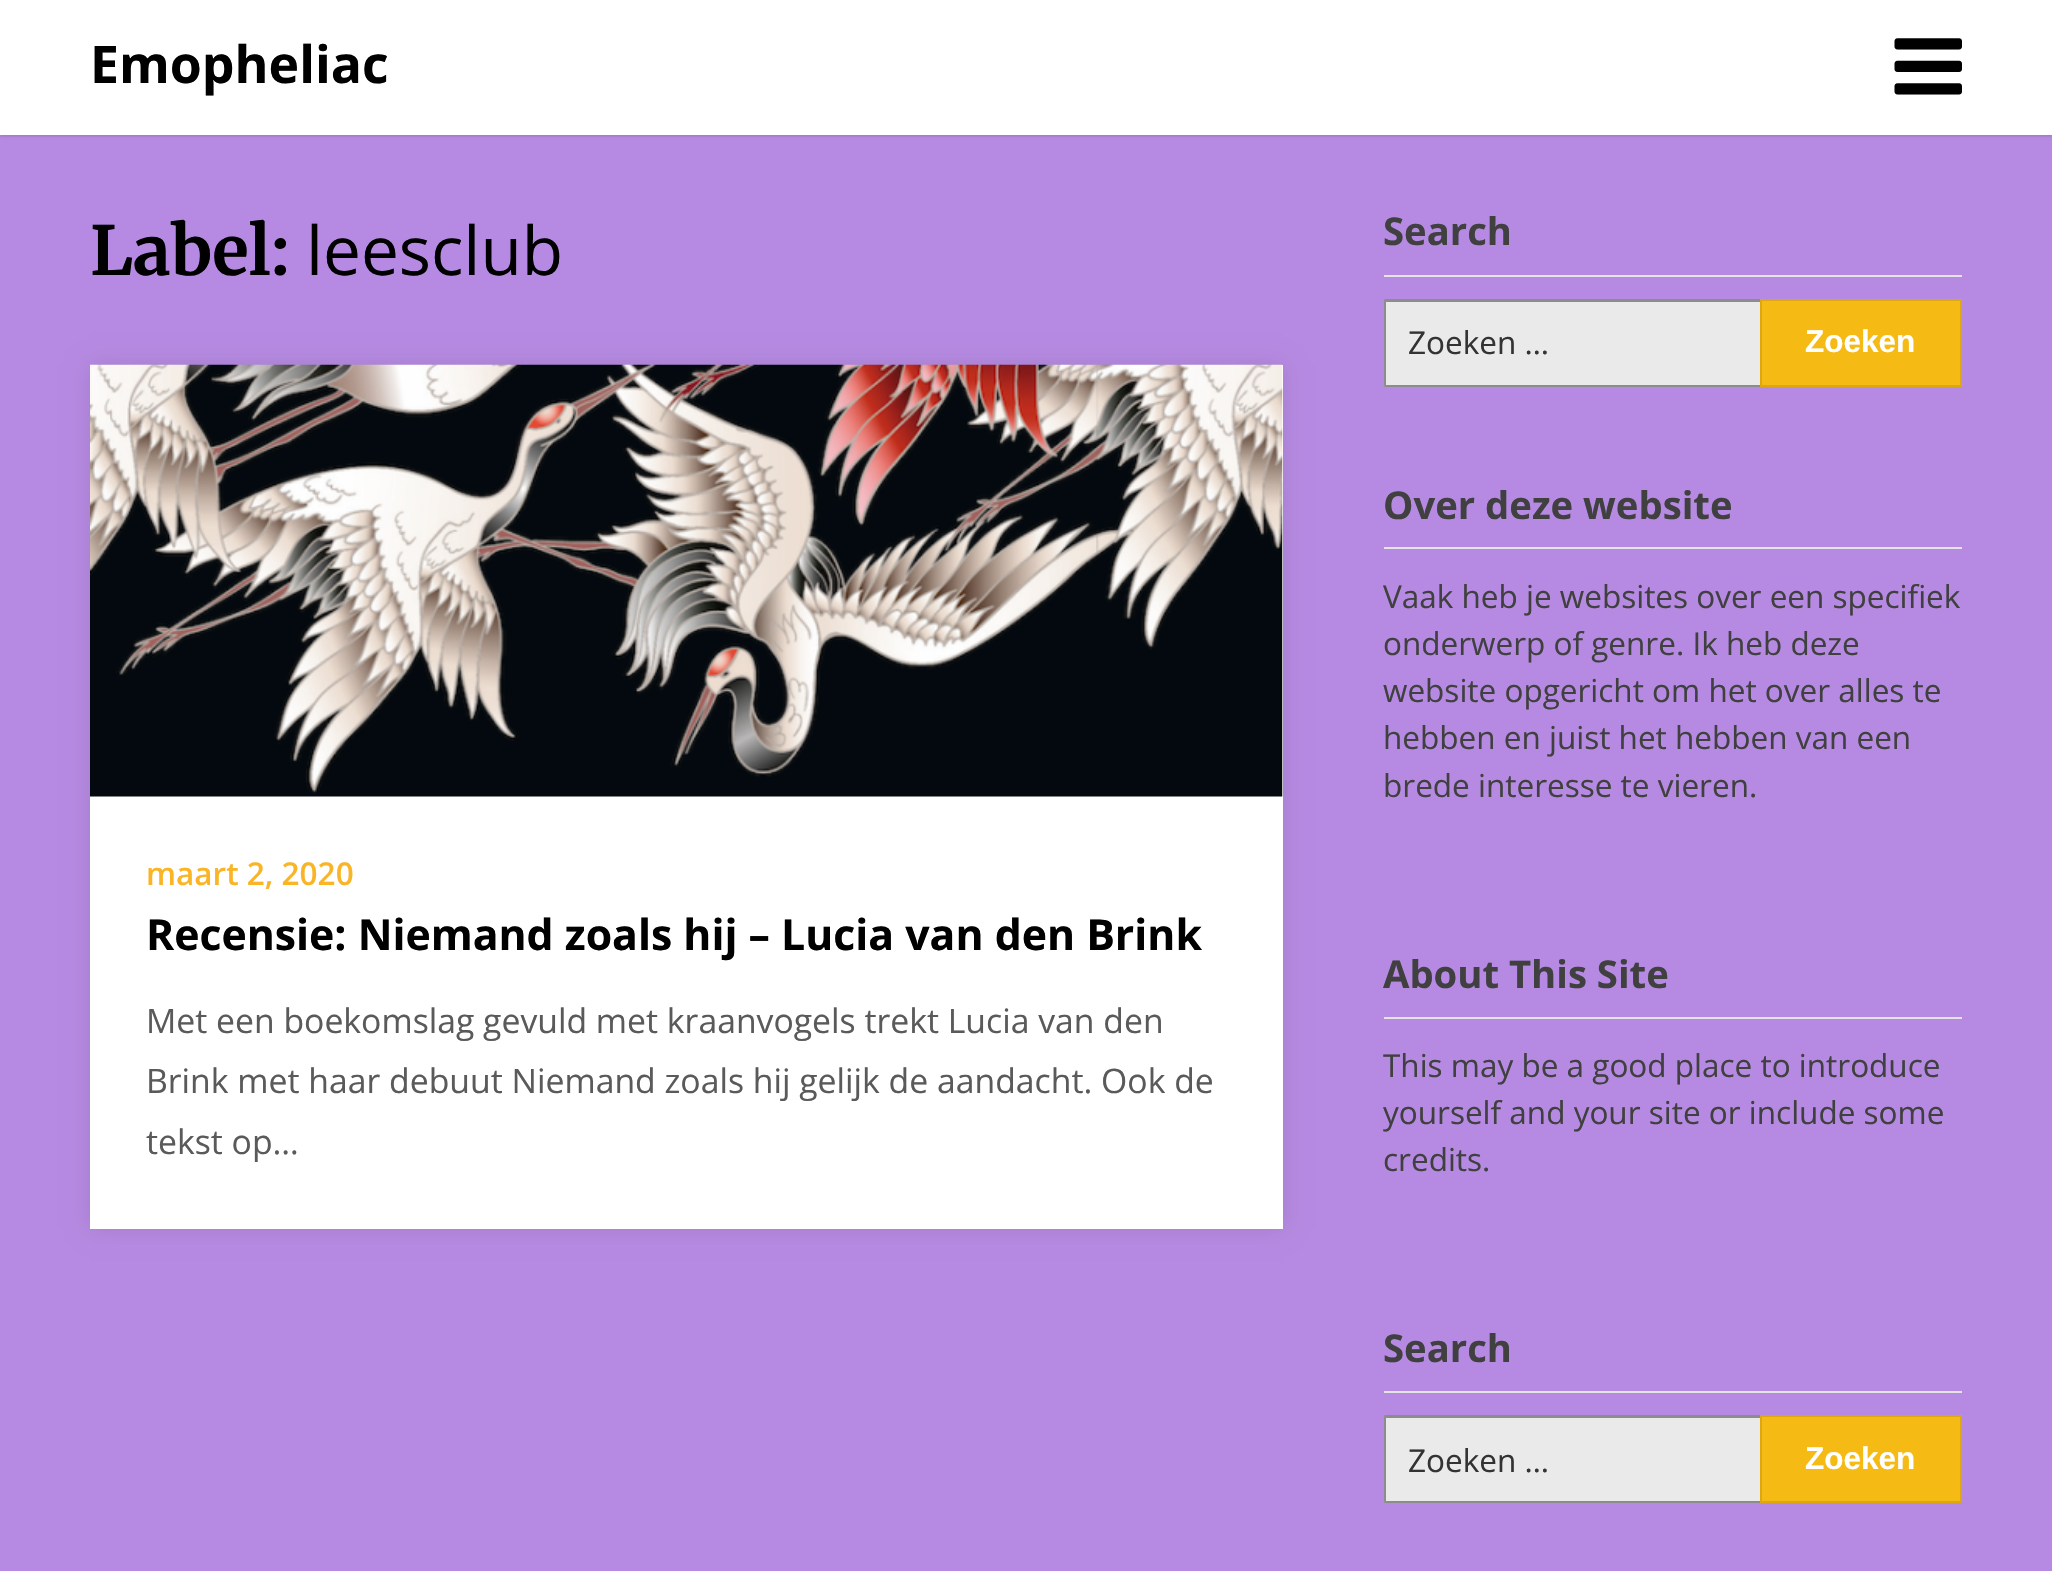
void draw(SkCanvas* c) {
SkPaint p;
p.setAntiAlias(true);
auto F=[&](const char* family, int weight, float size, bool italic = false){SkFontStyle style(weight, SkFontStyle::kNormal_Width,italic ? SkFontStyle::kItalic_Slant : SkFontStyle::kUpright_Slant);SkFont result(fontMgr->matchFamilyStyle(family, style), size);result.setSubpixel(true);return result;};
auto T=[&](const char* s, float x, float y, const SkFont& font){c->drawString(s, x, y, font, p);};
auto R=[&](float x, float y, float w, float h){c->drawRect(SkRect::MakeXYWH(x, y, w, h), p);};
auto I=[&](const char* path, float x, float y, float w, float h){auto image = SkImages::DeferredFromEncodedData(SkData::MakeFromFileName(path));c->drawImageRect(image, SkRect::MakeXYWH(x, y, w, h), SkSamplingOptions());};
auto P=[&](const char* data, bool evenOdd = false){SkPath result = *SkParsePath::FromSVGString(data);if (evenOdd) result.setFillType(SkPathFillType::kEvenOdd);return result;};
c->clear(0xffb68ae2);
p.setColor(0x1a000000);
p.setMaskFilter(SkMaskFilter::MakeBlur(kNormal_SkBlurStyle, 1));
c->drawRect(SkRect::MakeXYWH(0,2,2052,135),p);
p.setMaskFilter(nullptr);
p.setColor(0xffffffff);
R(0,0,2052,135);
auto f1 = F("Open Sans",700,51.75);
p.setColor(0xff000000);
T("Emopheliac",90,83,f1);
I("1.png",1894,38,68,57);
auto f2 = F("Merriweather",700,67.5);
T("Label:",90,275,f2);
auto f3 = F("Open Sans",400,67.5);
T("leesclub",306,275,f3);
p.setColor(0x1a000000);
p.setMaskFilter(SkMaskFilter::MakeBlur(kNormal_SkBlurStyle, 11));
c->drawRect(SkRect::MakeXYWH(90,365,1193,864),p);
p.setMaskFilter(nullptr);
p.setColor(0xffffffff);
R(90,365,1193,864);
I("2.png",90,364,1193,433);
auto f4 = F("Open Sans",600,31.5);
p.setColor(0xfffab526);
T("maart 2, 2020",146,885,f4);
auto f5 = F("Open Sans",700,42.75);
p.setColor(0xff000000);
T("Recensie: Niemand zoals hij – Lucia van den Brink",146,950,f5);
auto f6 = F("Open Sans",400,33.75);
p.setColor(0xff5a5a5a);
T("Met een boekomslag gevuld met kraanvogels trekt Lucia van den",146,1033,f6);
T("Brink met haar debuut Niemand zoals hij gelijk de aandacht. Ook de",146,1093,f6);
T("tekst op…",146,1154,f6);
p.setColor(0xffe4e4e4);
R(1384,275,578,2);
auto f7 = F("Open Sans",700,38.25);
p.setColor(0xff404040);
T("Search",1383,245,f7);
p.setColor(0xffeaeaea);
R(1384,299,376,88);
p.setColor(0xff8c8c8c);
c->drawPath(P("M1384 299h376v3h-374z"),p);
c->drawPath(P("M1760 387h-376l2-2h374z"),p);
p.setColor(0x66000000);
c->drawPath(P("M1384 387v-88l2 3v83z"),p);
auto f8 = F("Open Sans",400,31.5);
p.setColor(0xff333333);
T("Zoeken …",1408,354,f8);
p.setColor(0xfff5ba14);
c->drawRect(SkRect::MakeXYWH(1761,300,200,86),p);
p.setStroke(true);
p.setStrokeWidth(2);
p.setColor(0xffdda712);
c->drawRect(SkRect::MakeXYWH(1761,300,200,86),p);
auto f9 = F("Liberation Sans",700,31.5);
p.setStroke(false);
p.setColor(0xffffffff);
T("Zoeken",1805,352,f9);
p.setColor(0xffe4e4e4);
R(1384,547,578,2);
p.setColor(0xff404040);
T("Over deze website",1383,519,f7);
T("Vaak heb je websites over een specifiek",1383,608,f8);
T("onderwerp of genre. Ik heb deze",1383,655,f8);
T("website opgericht om het over alles te",1383,702,f8);
T("hebben en juist het hebben van een",1383,749,f8);
T("brede interesse te vieren.",1383,797,f8);
p.setColor(0xffe4e4e4);
R(1384,1017,578,2);
p.setColor(0xff404040);
T("About This Site",1383,988,f7);
T("This may be a good place to introduce",1383,1077,f8);
T("yourself and your site or include some",1383,1124,f8);
T("credits.",1383,1171,f8);
p.setColor(0xffe4e4e4);
R(1384,1391,578,2);
p.setColor(0xff404040);
T("Search",1383,1362,f7);
p.setColor(0xffeaeaea);
R(1384,1415,376,88);
p.setColor(0xff8c8c8c);
c->drawPath(P("M1384 1415h376v3h-374z"),p);
c->drawPath(P("M1760 1503h-376l2-2h374z"),p);
p.setColor(0x66000000);
c->drawPath(P("M1384 1503v-88l2 3v83z"),p);
p.setColor(0xff333333);
T("Zoeken …",1408,1472,f8);
p.setColor(0xfff5ba14);
c->drawRect(SkRect::MakeXYWH(1761,1416,200,86),p);
p.setStroke(true);
p.setColor(0xffdda712);
c->drawRect(SkRect::MakeXYWH(1761,1416,200,86),p);
p.setStroke(false);
p.setColor(0xffffffff);
T("Zoeken",1805,1469,f9);
}
